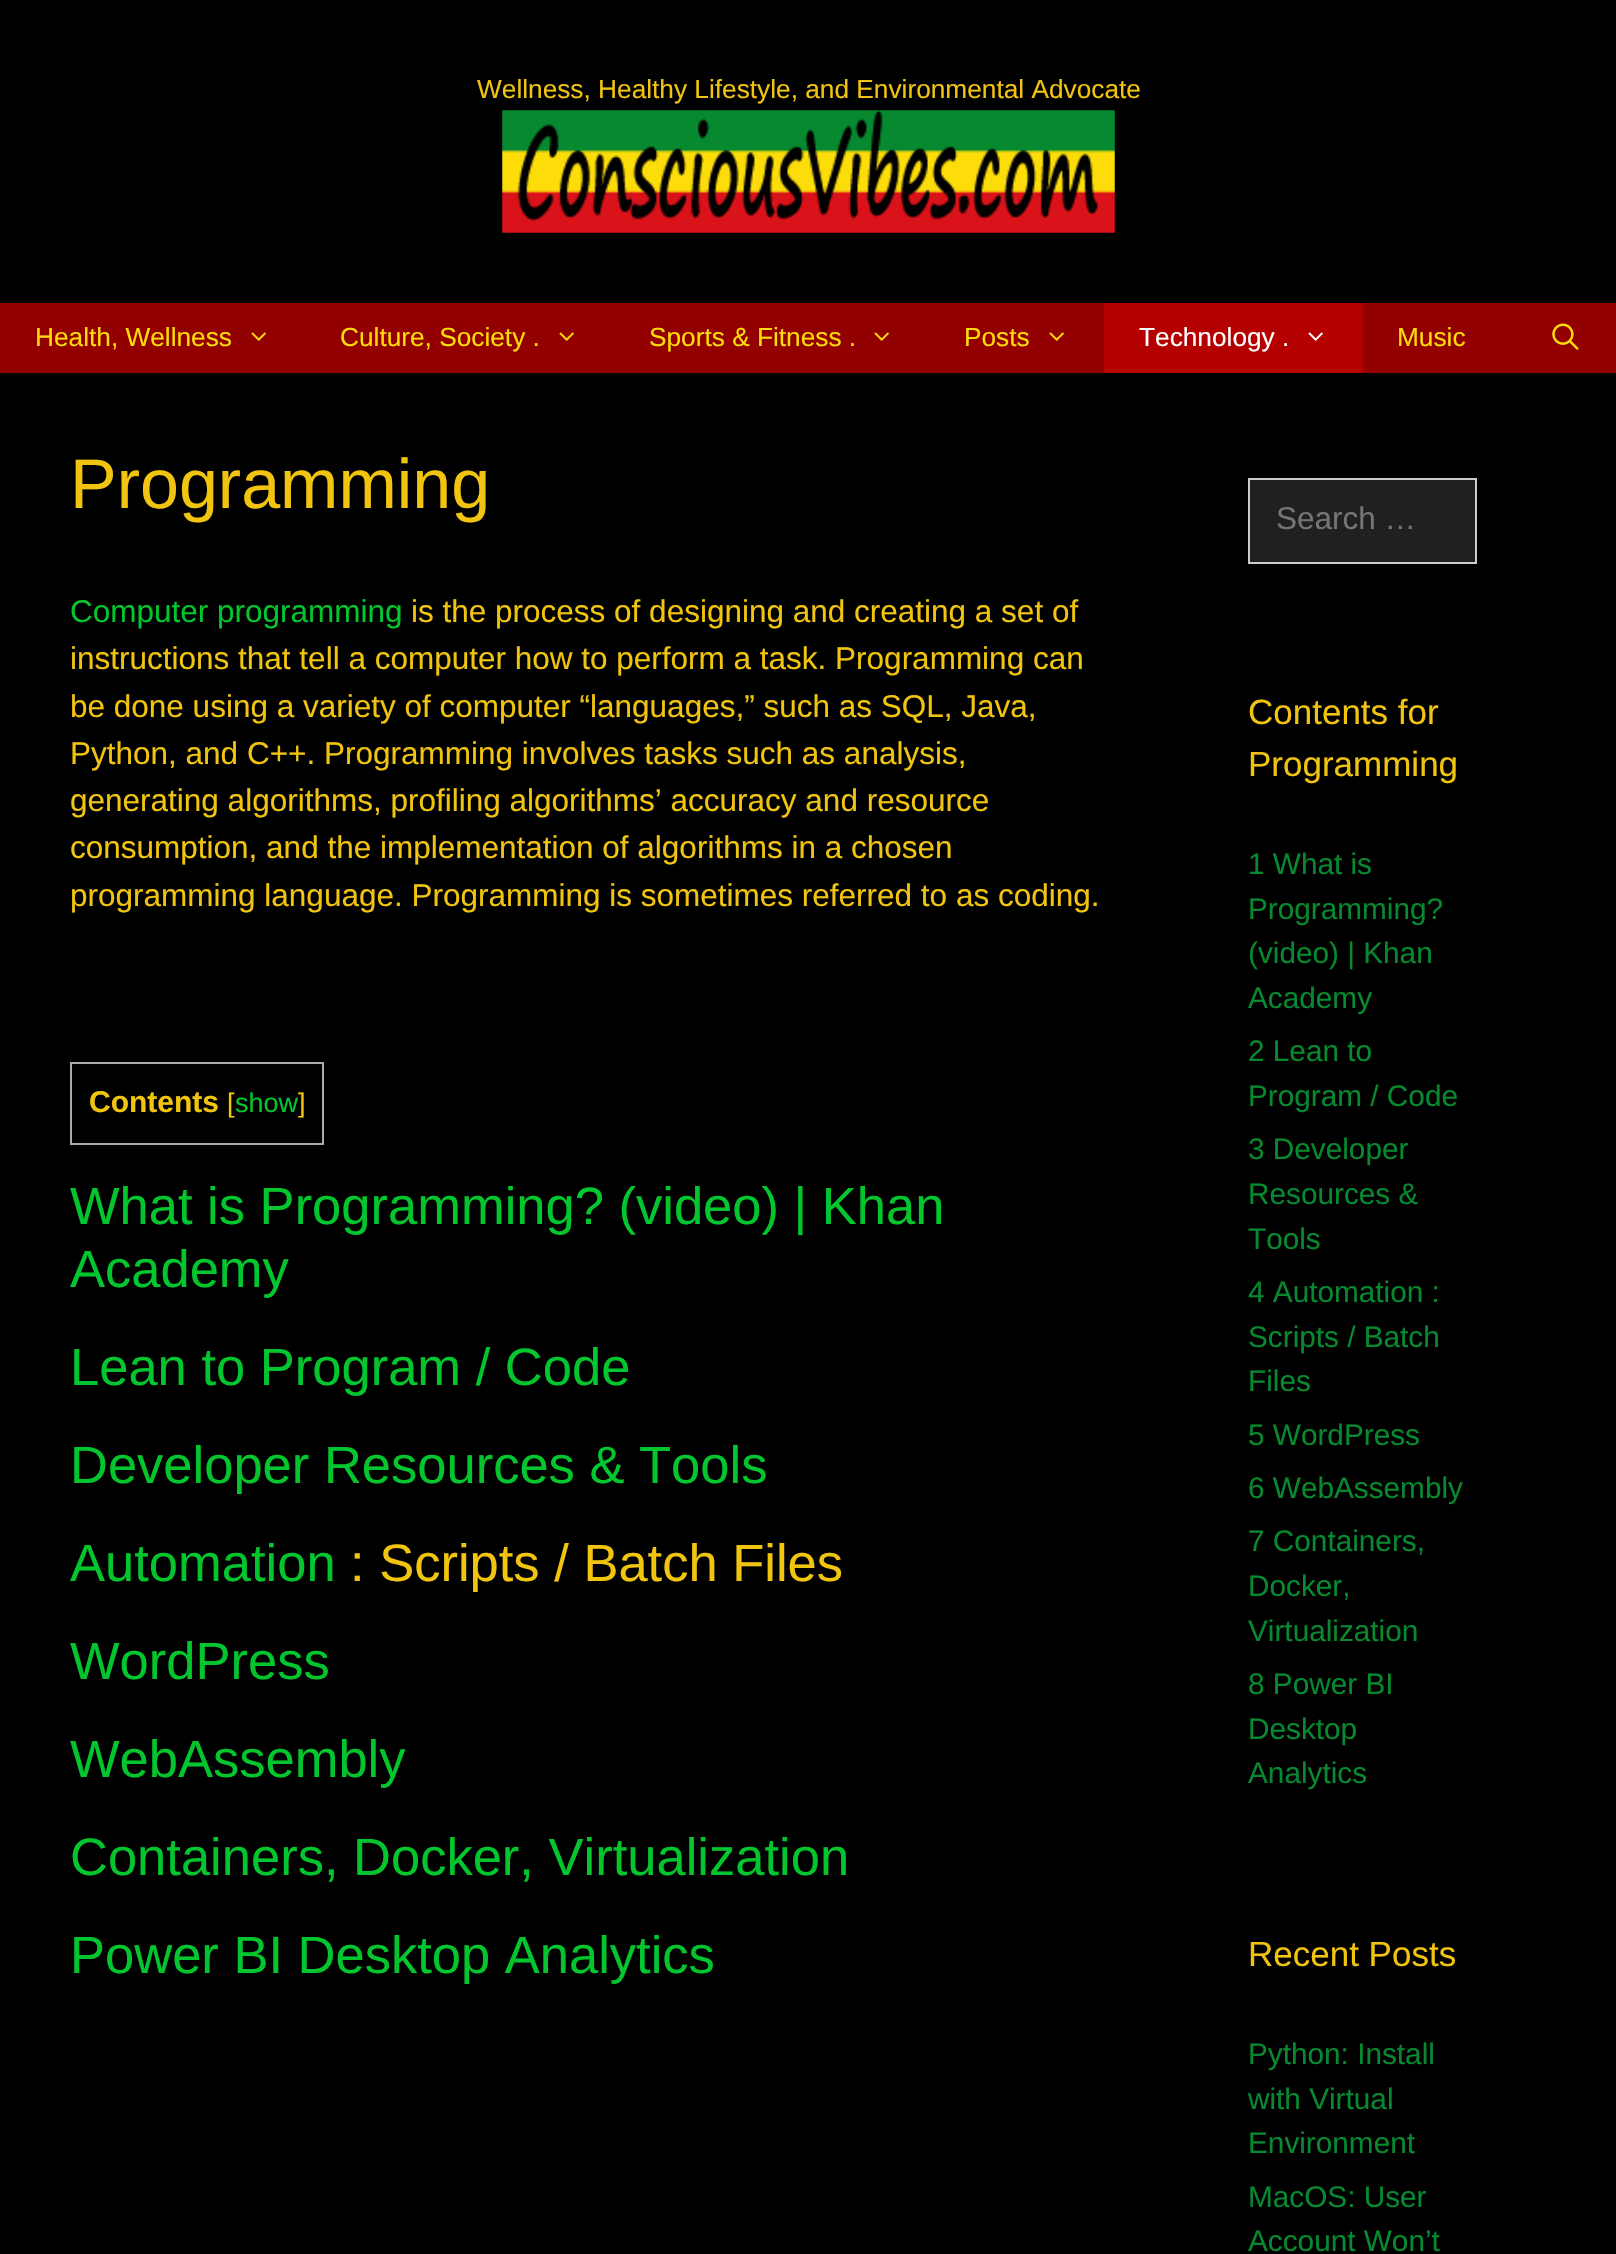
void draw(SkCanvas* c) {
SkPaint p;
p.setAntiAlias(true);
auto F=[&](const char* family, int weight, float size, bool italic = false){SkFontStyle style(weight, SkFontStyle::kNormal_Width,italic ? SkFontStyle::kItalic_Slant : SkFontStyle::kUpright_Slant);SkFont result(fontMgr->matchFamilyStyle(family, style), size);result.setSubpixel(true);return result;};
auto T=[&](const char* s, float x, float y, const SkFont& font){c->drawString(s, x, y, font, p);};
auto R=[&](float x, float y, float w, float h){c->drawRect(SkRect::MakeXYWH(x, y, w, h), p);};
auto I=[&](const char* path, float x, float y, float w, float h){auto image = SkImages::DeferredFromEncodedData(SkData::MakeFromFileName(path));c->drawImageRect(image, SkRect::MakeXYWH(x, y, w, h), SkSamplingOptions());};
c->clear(0xff000000);
auto f1 = F("Liberation Sans",400,26.25);
p.setColor(0xfff1c40f);
T("Wellness, Healthy Lifestyle, and Environmental Advocate",477,98,f1);
I("1.png",502,110,613,123);
p.setColor(0xff930000);
R(0,303,1616,70);
p.setColor(0xfffcdd09);
T("Health, Wellness",35,346,f1);
I("2.png",251,332,15,9);
T("Culture, Society .",340,346,f1);
I("2.png",559,332,15,9);
T("Sports & Fitness .",649,346,f1);
I("2.png",874,332,15,9);
T("Posts",964,346,f1);
I("2.png",1049,332,15,9);
p.setColor(0xffb50000);
R(1104,303,259,70);
p.setColor(0xffffffff);
T("Technology .",1139,346,f1);
I("3.png",1308,332,15,9);
p.setColor(0xfffcdd09);
T("Music",1397,346,f1);
I("4.png",1552,323,27,27);
auto f2 = F("Liberation Sans",400,70);
p.setColor(0xfff1c40f);
T("Programming",70,508,f2);
auto f3 = F("Liberation Sans",400,31.5);
p.setColor(0xff03c62e);
T("Computer programming",70,622,f3);
p.setColor(0xfff1c40f);
T("is the process of designing and creating a set of",411,622,f3);
T("instructions that tell a computer how to perform a task. Programming can",70,669,f3);
T("be done using a variety of computer “languages,” such as SQL, Java,",70,717,f3);
T("Python, and C++. Programming involves tasks such as analysis,",70,764,f3);
T("generating algorithms, profiling algorithms’ accuracy and resource",70,811,f3);
T("consumption, and the implementation of algorithms in a chosen",70,858,f3);
T("programming language. Programming is sometimes referred to as coding.",70,906,f3);
p.setStroke(true);
p.setStrokeWidth(2);
p.setColor(0xffaaaaaa);
c->drawRect(SkRect::MakeXYWH(71,1063,252,81),p);
auto f4 = F("Liberation Sans",700,30);
p.setStroke(false);
p.setColor(0xfff1c40f);
T("Contents",89,1112,f4);
auto f5 = F("Liberation Sans",400,27);
T("[",227,1112,f5);
p.setColor(0xff03c62e);
T("show",235,1112,f5);
p.setColor(0xfff1c40f);
T("]",298,1112,f5);
auto f6 = F("Liberation Sans",400,52.5);
p.setColor(0xff03c62e);
T("What is Programming? (video) | Khan",70,1224,f6);
T("Academy",70,1287,f6);
T("Lean to Program / Code",70,1385,f6);
T("Developer Resources & Tools",70,1483,f6);
T("Automation",70,1581,f6);
p.setColor(0xfff1c40f);
T(": Scripts / Batch Files",350,1581,f6);
p.setColor(0xff03c62e);
T("WordPress",70,1679,f6);
T("WebAssembly",70,1777,f6);
T("Containers, Docker, Virtualization",70,1875,f6);
T("Power BI Desktop Analytics",70,1973,f6);
p.setColor(0xff221f1f);
c->drawRect(SkRect::MakeXYWH(1249,479,227,84),p);
p.setStroke(true);
p.setColor(0xffcccccc);
c->drawRect(SkRect::MakeXYWH(1249,479,227,84),p);
p.setStroke(false);
p.setColor(0xff757575);
T("Search …",1276,529,f3);
auto f7 = F("Liberation Sans",400,35);
p.setColor(0xfff1c40f);
T("Contents for",1248,724,f7);
T("Programming",1248,776,f7);
auto f8 = F("Liberation Sans",400,29.75);
p.setColor(0xff078930);
T("1 What is",1248,874,f8);
T("Programming?",1248,919,f8);
T("(video) | Khan",1248,963,f8);
T("Academy",1248,1008,f8);
T("2 Lean to",1248,1061,f8);
T("Program / Code",1248,1106,f8);
T("3 Developer",1248,1159,f8);
T("Resources &",1248,1204,f8);
T("Tools",1248,1249,f8);
T("4 Automation :",1248,1302,f8);
T("Scripts / Batch",1248,1347,f8);
T("Files",1248,1391,f8);
T("5 WordPress",1248,1445,f8);
T("6 WebAssembly",1248,1498,f8);
T("7 Containers,",1248,1551,f8);
T("Docker,",1248,1596,f8);
T("Virtualization",1248,1641,f8);
T("8 Power BI",1248,1694,f8);
T("Desktop",1248,1739,f8);
T("Analytics",1248,1783,f8);
p.setColor(0xfff1c40f);
T("Recent Posts",1248,1966,f7);
p.setColor(0xff078930);
T("Python: Install",1248,2064,f8);
T("with Virtual",1248,2109,f8);
T("Environment",1248,2153,f8);
T("MacOS: User",1248,2207,f8);
T("Account Won’t",1248,2251,f8);
}
